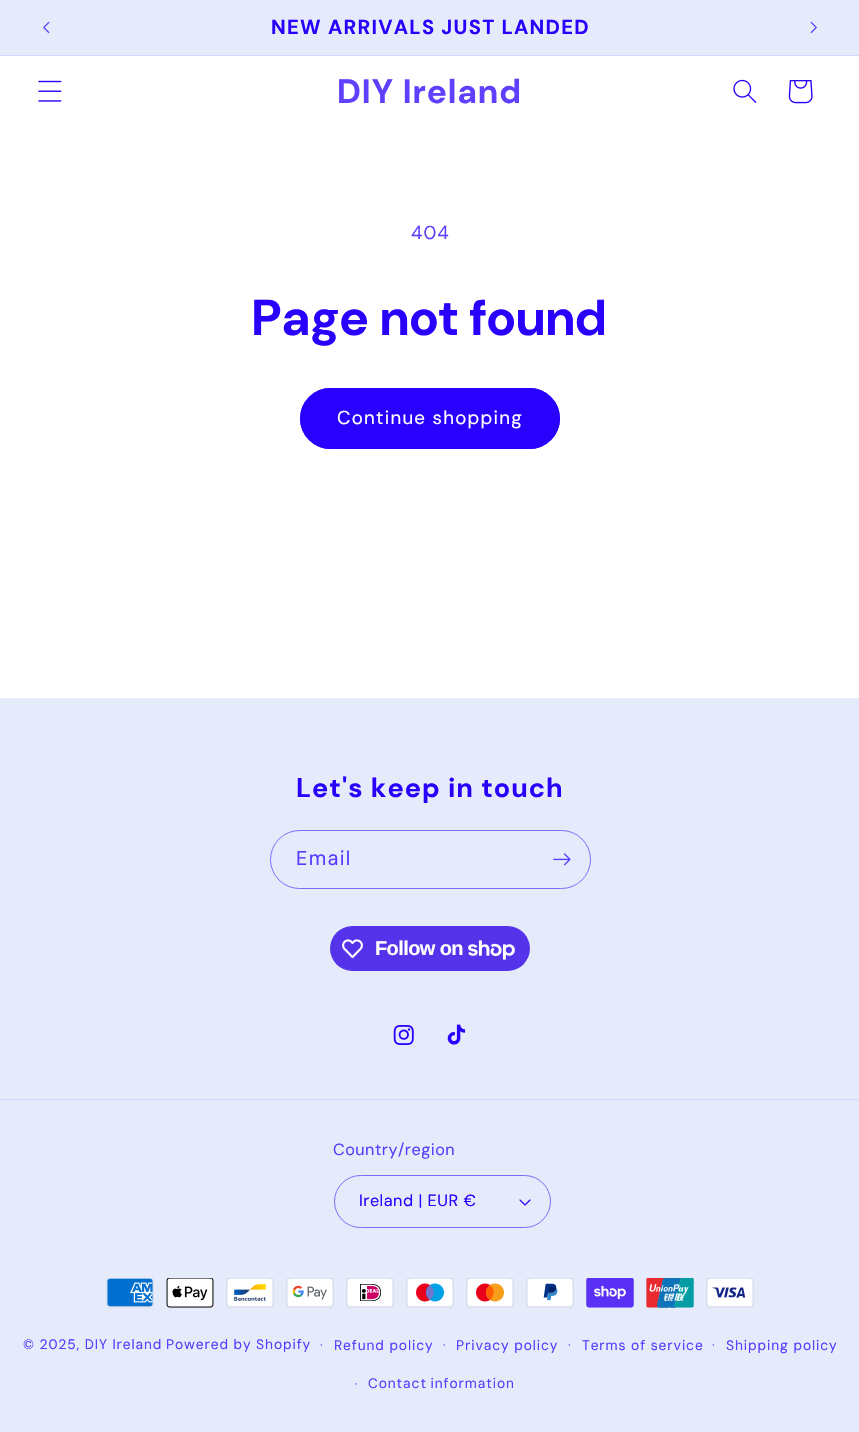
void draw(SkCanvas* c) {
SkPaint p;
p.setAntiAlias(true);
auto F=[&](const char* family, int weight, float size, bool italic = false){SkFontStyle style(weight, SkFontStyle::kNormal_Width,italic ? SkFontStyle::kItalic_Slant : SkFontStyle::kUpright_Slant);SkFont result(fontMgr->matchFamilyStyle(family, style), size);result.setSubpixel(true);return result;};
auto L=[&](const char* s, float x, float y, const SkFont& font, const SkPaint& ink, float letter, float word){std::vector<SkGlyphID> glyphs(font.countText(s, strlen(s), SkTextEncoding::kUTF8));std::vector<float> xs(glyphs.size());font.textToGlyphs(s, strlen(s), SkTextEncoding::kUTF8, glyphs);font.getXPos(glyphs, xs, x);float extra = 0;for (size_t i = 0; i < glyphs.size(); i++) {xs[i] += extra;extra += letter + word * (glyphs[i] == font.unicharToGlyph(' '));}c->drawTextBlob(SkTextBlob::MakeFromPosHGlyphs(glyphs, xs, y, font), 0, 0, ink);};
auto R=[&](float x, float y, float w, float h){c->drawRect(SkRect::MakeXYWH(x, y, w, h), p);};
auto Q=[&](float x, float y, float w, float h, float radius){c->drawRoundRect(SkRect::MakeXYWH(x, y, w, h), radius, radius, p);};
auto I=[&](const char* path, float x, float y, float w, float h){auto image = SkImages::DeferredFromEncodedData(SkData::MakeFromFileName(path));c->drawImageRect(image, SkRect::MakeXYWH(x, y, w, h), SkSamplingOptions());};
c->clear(0xffffffff);
p.setColor(0xffe6ebfc);
R(0,0,859,55);
p.setColor(0xffd7d8fc);
R(0,55,859,1);
I("1.png",43,21,7,13);
auto f1 = F("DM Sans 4",700,20.25);
p.setColor(0xff2a00fd);
L("NEW ARRIVALS JUST LANDED",271,34,f1,p,1.25,0);
I("2.png",810,21,7,13);
I("3.png",38,80,24,22);
auto f2 = F("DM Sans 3",700,33.75);
p.setColor(0xff5f40fe);
L("DIY Ireland",337,103,f2,p,1,0);
I("4.png",733,79,24,24);
I("5.png",788,80,25,24);
auto f3 = F("DM Sans",400,18.75);
L("404",411,239,f3,p,1,0);
auto f4 = F("DM Sans",700,50.5);
p.setColor(0xff2a00fd);
L("Page not found",252,335,f4,p,1,0);
Q(300,388,260,61,30.5);
p.setStroke(true);
p.setStrokeWidth(3);
c->drawRoundRect(SkRect::MakeXYWH(301.5,389.5,257,58),29,29,p);
p.setStroke(false);
p.setColor(0xffffffff);
L("Continue shopping",337,424,f3,p,1.25,0);
p.setColor(0xffe6ebfc);
R(0,698,859,734);
auto f5 = F("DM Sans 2",700,27);
p.setColor(0xff2a00fd);
L("Let's keep in touch",296,797,f5,p,1,0);
p.setStroke(true);
p.setStrokeWidth(1);
p.setColor(0xff7f6afd);
c->drawRoundRect(SkRect::MakeXYWH(270.5,830.5,320,58),29,29,p);
auto f6 = F("DM Sans 2",400,20);
p.setStroke(false);
p.setColor(0xff593bfd);
L("Email",296,865,f6,p,1.25,0);
I("6.png",553,853,18,13);
p.setColor(0xff5433eb);
Q(330,926,200,45,22.5);
I("7.png",342,939,21,20);
auto f7 = F("Liberation Sans",700,20);
p.setColor(0xffffffff);
L("Follow on",375,955,f7,p,-.6,0);
I("8.png",468,940,47,20);
I("9.png",393,1025,21,20);
I("10.png",447,1024,19,21);
p.setColor(0xffd7d8fc);
R(0,1099,859,1);
auto f8 = F("DM Sans 3",400,16.25);
p.setColor(0xff593bfd);
L("Country/region",333,1155,f8,p,.5,0);
I("11.png",519,1199,12,7);
p.setStroke(true);
p.setColor(0xff7f6afd);
c->drawRoundRect(SkRect::MakeXYWH(334.5,1175.5,216,52),26,26,p);
p.setStroke(false);
p.setColor(0xff2a00fd);
L("Ireland | EUR €",359,1206,f8,p,.5,0);
I("12.png",106,1278,48,30);
I("13.png",166,1278,48,30);
I("14.png",226,1278,48,30);
I("15.png",286,1278,48,30);
I("16.png",346,1278,48,30);
I("17.png",406,1278,48,30);
I("18.png",466,1278,48,30);
I("19.png",526,1278,48,30);
I("20.png",586,1278,48,30);
I("21.png",646,1278,48,30);
I("22.png",706,1278,48,30);
auto f9 = F("DM Sans 2",400,13.75);
p.setColor(0xff593bfd);
L("© 2025, DIY Ireland",23,1349,f9,p,.9,0);
L("Powered by Shopify",166,1349,f9,p,.9,0);
auto f10 = F("DM Sans 2",400,12);
L("·",320,1349,f10,p,.9,0);
L("Refund policy",334,1350,f9,p,.9,0);
L("·",443,1349,f10,p,.9,0);
L("Privacy policy",456,1350,f9,p,.9,0);
L("·",568,1349,f10,p,.9,0);
L("Terms of service",582,1350,f9,p,.9,0);
L("·",712,1349,f10,p,.9,0);
L("Shipping policy",726,1350,f9,p,.9,0);
L("·",355,1388,f10,p,.9,0);
L("Contact information",368,1388,f9,p,.9,-1);
}
